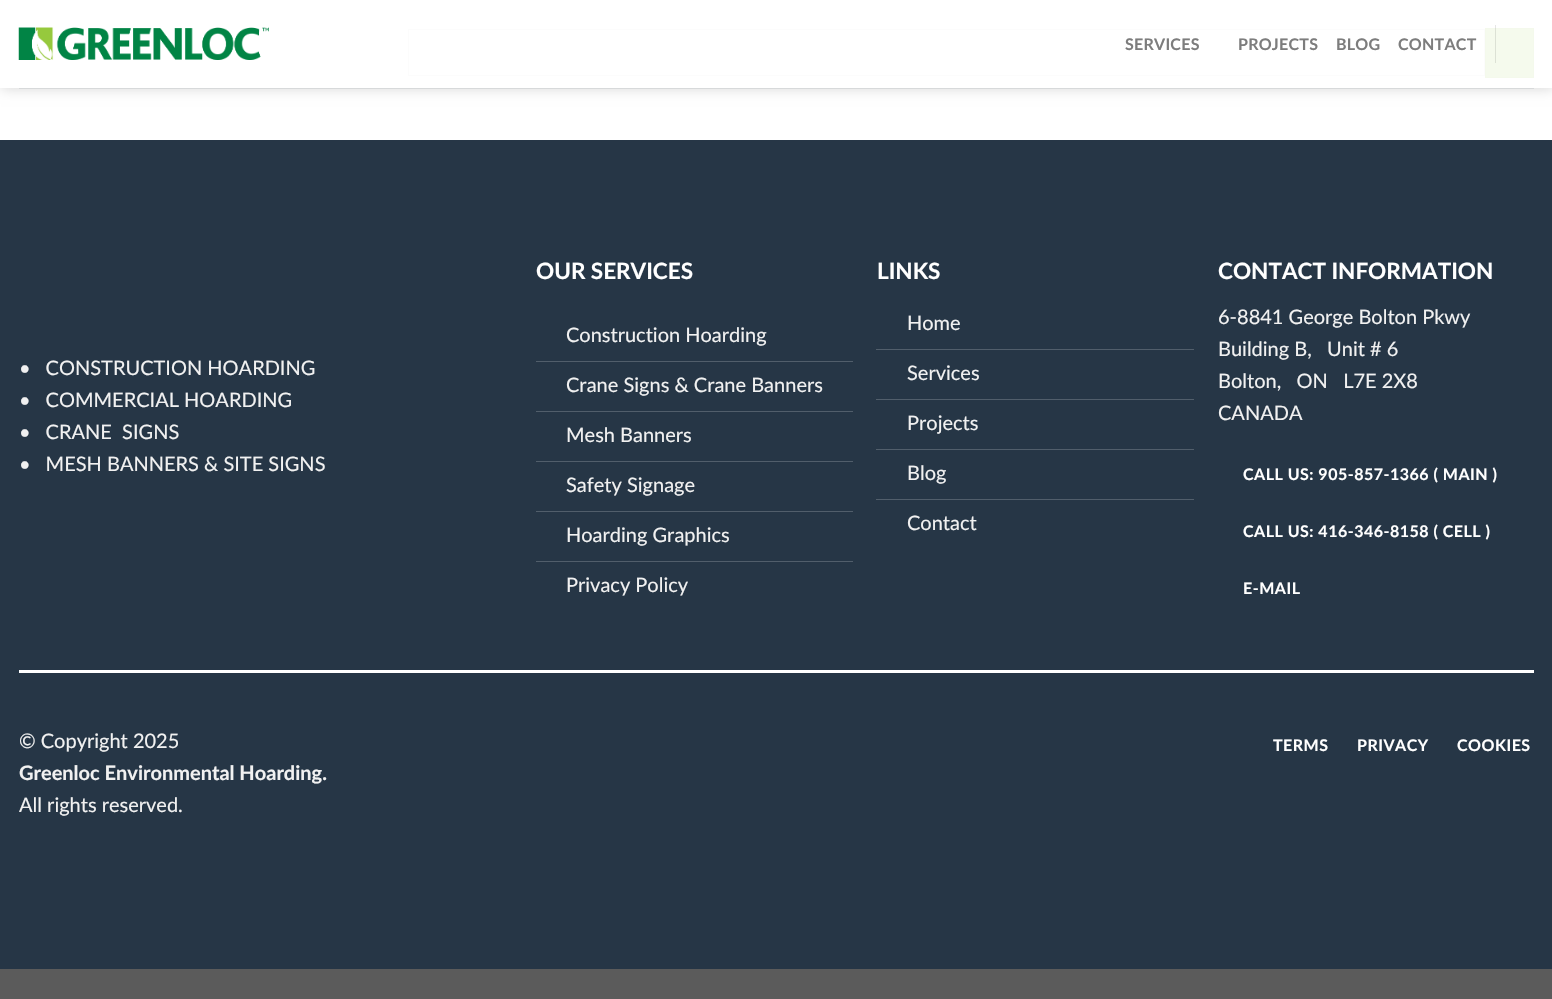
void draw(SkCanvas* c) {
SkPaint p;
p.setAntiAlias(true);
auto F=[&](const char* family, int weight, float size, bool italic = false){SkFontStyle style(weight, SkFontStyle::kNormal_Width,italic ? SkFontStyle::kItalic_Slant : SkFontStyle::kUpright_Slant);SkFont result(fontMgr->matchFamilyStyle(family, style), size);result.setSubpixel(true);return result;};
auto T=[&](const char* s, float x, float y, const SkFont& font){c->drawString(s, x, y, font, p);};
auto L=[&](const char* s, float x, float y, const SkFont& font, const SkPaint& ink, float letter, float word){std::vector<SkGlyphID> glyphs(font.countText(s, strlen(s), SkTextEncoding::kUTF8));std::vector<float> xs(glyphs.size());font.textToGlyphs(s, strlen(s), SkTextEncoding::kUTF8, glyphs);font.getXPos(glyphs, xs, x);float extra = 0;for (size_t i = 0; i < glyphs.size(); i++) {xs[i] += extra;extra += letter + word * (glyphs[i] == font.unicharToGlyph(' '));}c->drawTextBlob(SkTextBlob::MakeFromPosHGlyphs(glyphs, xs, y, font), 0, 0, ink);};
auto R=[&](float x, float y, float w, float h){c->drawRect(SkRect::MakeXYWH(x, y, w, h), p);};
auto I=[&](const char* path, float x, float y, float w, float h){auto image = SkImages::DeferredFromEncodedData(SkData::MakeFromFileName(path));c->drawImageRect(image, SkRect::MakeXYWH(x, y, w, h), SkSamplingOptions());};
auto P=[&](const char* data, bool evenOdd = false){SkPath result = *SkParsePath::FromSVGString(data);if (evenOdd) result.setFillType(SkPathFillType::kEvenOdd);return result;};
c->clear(0xffffffff);
p.setStroke(true);
p.setStrokeWidth(1);
p.setColor(0xffdddddd);
c->drawRect(SkRect::MakeXYWH(408.5,29.5,1076,46),p);
p.setStroke(false);
p.setColor(0xff96c93e);
c->drawRect(SkRect::MakeXYWH(1485.5,28.5,48,49),p);
p.setStroke(true);
p.setColor(0xff8fbf3b);
c->drawRect(SkRect::MakeXYWH(1485.5,28.5,48,49),p);
c->save();
c->clipPath(P("M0 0h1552v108h-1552zm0 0h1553v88h-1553z",true),true);
p.setStroke(false);
p.setColor(0x26000000);
p.setMaskFilter(SkMaskFilter::MakeBlur(kNormal_SkBlurStyle, 6));
c->drawRect(SkRect::MakeXYWH(1,1,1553,88),p);
p.setMaskFilter(nullptr);
c->restore();
p.setColor(0xe6ffffff);
R(0,28,1552,60);
I("1.png",18,27,251,33);
auto f1 = F("Lato",700,16);
p.setColor(0xff7d7d7d);
L("SERVICES",1125,50,f1,p,.25,0);
L("PROJECTS",1238,50,f1,p,.25,0);
L("BLOG",1336,50,f1,p,.25,0);
L("CONTACT",1398,50,f1,p,.25,0);
p.setColor(0x1a000000);
R(1495,25,1,38);
p.setColor(0xffd7d9da);
R(19,88,1515,1);
p.setColor(0xff263646);
R(0,140,1552,829);
auto f2 = F("Lato",400,20);
p.setColor(0xfff1f1f1);
T("• CONSTRUCTION HOARDING",19,375,f2);
T("• COMMERCIAL HOARDING",19,407,f2);
T("• CRANE  SIGNS",19,439,f2);
T("• MESH BANNERS & SITE SIGNS",19,471,f2);
auto f3 = F("Lato",700,22.5);
p.setColor(0xffffffff);
T("OUR SERVICES",536,279,f3);
p.setColor(0xff515e6b);
R(536,361,317,1);
p.setColor(0xfff1f1f1);
T("Construction Hoarding",566,342,f2);
p.setColor(0xff515e6b);
R(536,411,317,1);
p.setColor(0xfff1f1f1);
T("Crane Signs & Crane Banners",566,392,f2);
p.setColor(0xff515e6b);
R(536,461,317,1);
p.setColor(0xfff1f1f1);
T("Mesh Banners",566,442,f2);
p.setColor(0xff515e6b);
R(536,511,317,1);
p.setColor(0xfff1f1f1);
T("Safety Signage",566,492,f2);
p.setColor(0xff515e6b);
R(536,561,317,1);
p.setColor(0xfff1f1f1);
T("Hoarding Graphics",566,542,f2);
T("Privacy Policy",566,592,f2);
p.setColor(0xffffffff);
T("LINKS",877,279,f3);
p.setColor(0xff515e6b);
R(876,349,318,1);
p.setColor(0xfff1f1f1);
T("Home",907,330,f2);
p.setColor(0xff515e6b);
R(876,399,318,1);
p.setColor(0xfff1f1f1);
T("Services",907,380,f2);
p.setColor(0xff515e6b);
R(876,449,318,1);
p.setColor(0xfff1f1f1);
T("Projects",907,430,f2);
p.setColor(0xff515e6b);
R(876,499,318,1);
p.setColor(0xfff1f1f1);
T("Blog",907,480,f2);
T("Contact",907,530,f2);
p.setColor(0xffffffff);
T("CONTACT INFORMATION",1218,279,f3);
p.setColor(0xfff1f1f1);
T("6-8841 George Bolton Pkwy",1218,324,f2);
T("Building B,   Unit # 6",1218,356,f2);
T("Bolton,   ON   L7E 2X8",1218,388,f2);
T("CANADA",1218,420,f2);
p.setColor(0xffffffff);
L("CALL US: 905-857-1366 ( MAIN )",1243,480,f1,p,.5,0);
L("CALL US: 416-346-8158 ( CELL )",1243,537,f1,p,.5,0);
L("E-MAIL",1243,594,f1,p,.5,0);
R(19,670,1515,3);
p.setColor(0xfff1f1f1);
T("© Copyright 2025",19,748,f2);
auto f4 = F("Lato",700,20);
T("Greenloc Environmental Hoarding.",19,780,f4);
T("All rights reserved.",19,812,f2);
p.setColor(0xffffffff);
L("TERMS",1273,751,f1,p,.5,0);
L("PRIVACY",1357,751,f1,p,.5,0);
L("COOKIES",1457,751,f1,p,.5,0);
p.setColor(0xff5b5b5b);
R(0,969,1552,30);
}
